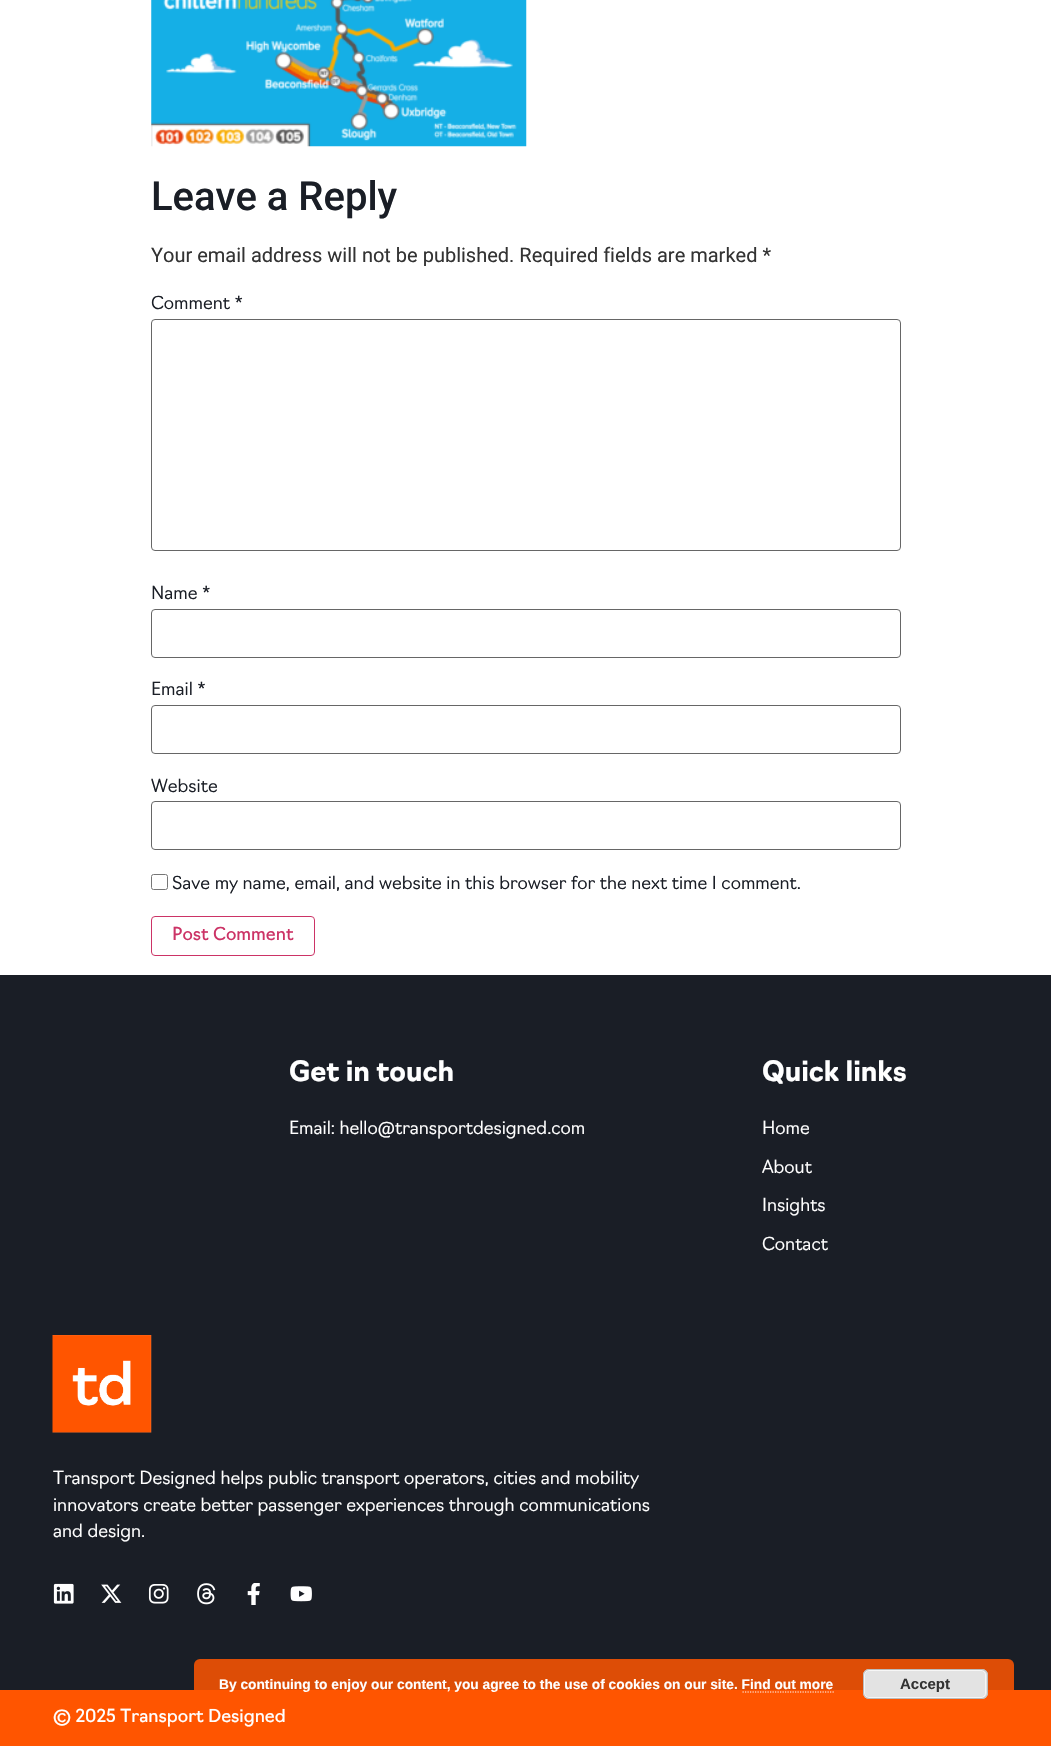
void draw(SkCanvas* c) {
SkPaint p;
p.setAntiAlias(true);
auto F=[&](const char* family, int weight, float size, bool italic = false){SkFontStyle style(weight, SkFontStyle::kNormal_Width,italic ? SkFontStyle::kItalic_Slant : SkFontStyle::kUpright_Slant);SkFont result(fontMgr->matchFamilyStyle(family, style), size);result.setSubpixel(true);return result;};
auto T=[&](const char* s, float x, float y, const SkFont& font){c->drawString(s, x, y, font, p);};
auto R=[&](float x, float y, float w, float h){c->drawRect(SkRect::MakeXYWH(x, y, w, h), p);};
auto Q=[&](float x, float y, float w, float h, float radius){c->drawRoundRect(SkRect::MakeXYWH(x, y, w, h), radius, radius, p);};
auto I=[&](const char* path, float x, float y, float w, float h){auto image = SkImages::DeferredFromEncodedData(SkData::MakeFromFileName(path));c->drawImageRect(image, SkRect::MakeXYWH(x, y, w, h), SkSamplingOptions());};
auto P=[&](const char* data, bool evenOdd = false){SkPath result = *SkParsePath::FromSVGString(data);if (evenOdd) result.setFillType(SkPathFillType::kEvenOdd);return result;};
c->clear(0xffffffff);
I("1.png",151,0,376,147);
auto f1 = F("Roboto",500,40);
p.setColor(0xff1a1e26);
T("Leave a Reply",151,210,f1);
auto f2 = F("Roboto",400,20);
p.setColor(0xff333333);
T("Your email address will not be published. Required fields are marked *",151,262,f2);
auto f3 = F("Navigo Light",300,17.5);
p.setColor(0xff1a1e26);
T("Comment *",151,309,f3);
p.setStroke(true);
p.setStrokeWidth(1);
p.setColor(0xff666666);
c->drawRoundRect(SkRect::MakeXYWH(151.5,319.5,749,231),3.5,3.5,p);
p.setStroke(false);
p.setColor(0xff1a1e26);
T("Name *",151,599,f3);
p.setStroke(true);
p.setColor(0xff666666);
c->drawRoundRect(SkRect::MakeXYWH(151.5,609.5,749,48),3.5,3.5,p);
p.setStroke(false);
p.setColor(0xff1a1e26);
T("Email *",151,695,f3);
p.setStroke(true);
p.setColor(0xff666666);
c->drawRoundRect(SkRect::MakeXYWH(151.5,705.5,749,48),3.5,3.5,p);
p.setStroke(false);
p.setColor(0xff1a1e26);
T("Website",151,792,f3);
p.setStroke(true);
p.setColor(0xff666666);
c->drawRoundRect(SkRect::MakeXYWH(151.5,801.5,749,48),3.5,3.5,p);
p.setColor(0xff767676);
c->drawRoundRect(SkRect::MakeXYWH(151.5,874.5,16,15),2,2,p);
p.setStroke(false);
p.setColor(0xff1a1e26);
T("Save my name, email, and website in this browser for the next time I comment.",172,889,f3);
p.setStroke(true);
p.setColor(0xffcc3366);
c->drawRoundRect(SkRect::MakeXYWH(151.5,916.5,163,39),3.5,3.5,p);
auto f4 = F("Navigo",400,17.5);
p.setStroke(false);
T("Post Comment",172,940,f4);
p.setColor(0xff1a1e26);
R(0,975,1051,715);
auto f5 = F("Navigo",700,27.5);
p.setColor(0xffffffff);
T("Get in touch",289,1081,f5);
T("Email: hello@transportdesigned.com",289,1134,f3);
T("Quick links",762,1081,f5);
T("Home",762,1134,f3);
T("About",762,1173,f3);
T("Insights",762,1211,f3);
T("Contact",762,1250,f3);
I("2.png",52,1335,100,98);
T("Transport Designed helps public transport operators, cities and mobility",53,1484,f3);
T("innovators create better passenger experiences through communications",53,1511,f3);
T("and design.",53,1537,f3);
I("3.png",53,1583,21,21);
I("4.png",101,1584,21,19);
I("5.png",148,1584,21,20);
I("6.png",197,1583,19,22);
I("7.png",247,1583,13,22);
I("8.png",290,1586,22,16);
p.setColor(0xffff5500);
R(0,1690,1051,56);
p.setColor(0xffffffff);
T("© 2025 Transport Designed",53,1722,f4);
p.setColor(0xd9ff5500);
Q(194,1659,820,50,6);
auto f6 = F("Liberation Sans",700,13.75);
p.setColor(0xffffffff);
T("By continuing to enjoy our content, you agree to the use of cookies on our site. Find out more",219,1689,f6);
p.setColor(0xffe3e3e3);
Q(863,1669,125,30,6);
p.setStroke(true);
p.setColor(0xfff6f6f6);
c->drawRoundRect(SkRect::MakeXYWH(864.5,1670.5,121,27),4.5,4.5,p);
p.setColor(0xffbbbbbb);
c->drawRoundRect(SkRect::MakeXYWH(863.5,1669.5,124,29),5.5,5.5,p);
auto f7 = F("Liberation Sans",700,15);
p.setStroke(false);
p.setColor(0xff333333);
T("Accept",900,1689,f7);
p.setStroke(true);
p.setStrokeWidth(1.2);
p.setColor(0xffffffff);
p.setPathEffect(SkDashPathEffect::Make({{1.25f,1.25f}}, 0));
c->drawPath(P("M742.5 1692h91.5"),p);
p.setPathEffect(nullptr);
}
